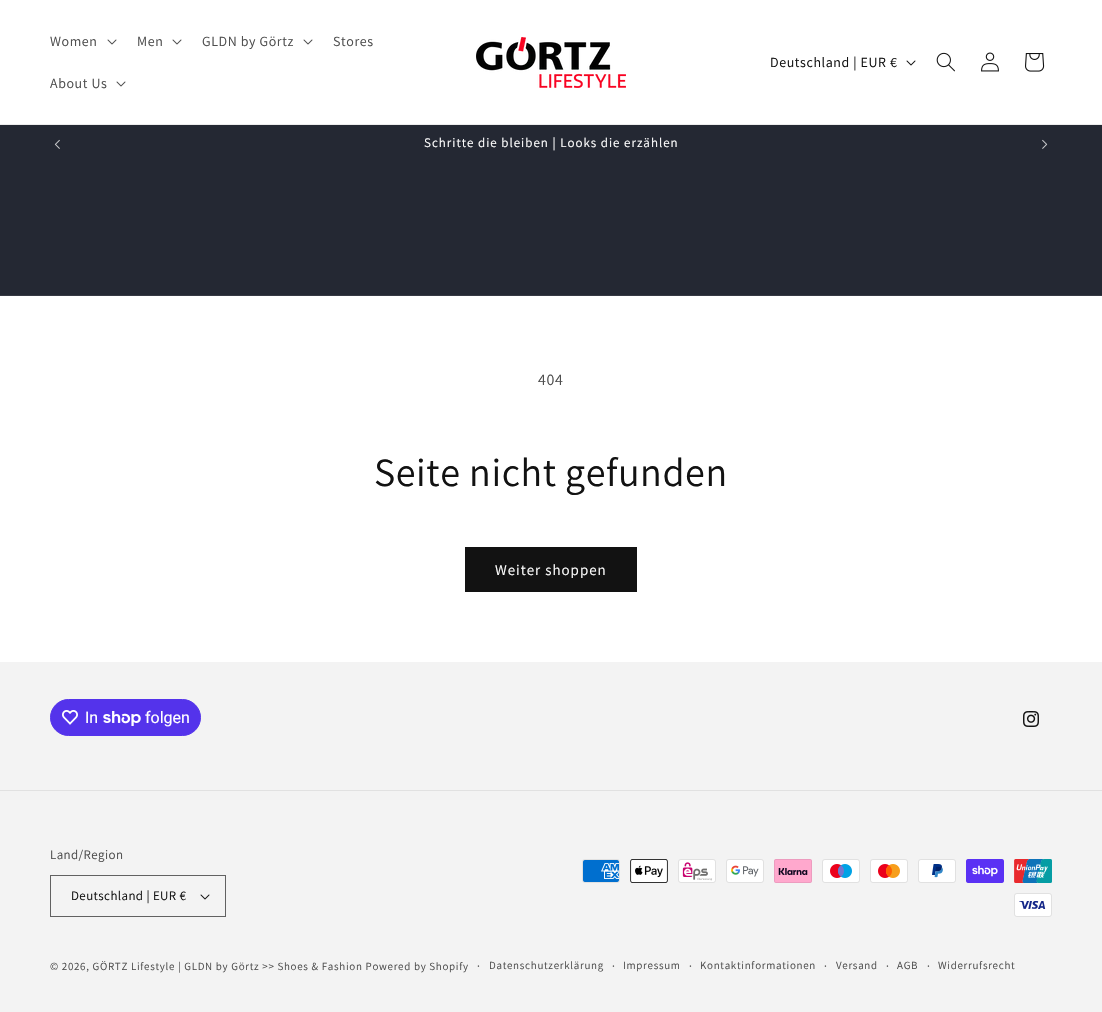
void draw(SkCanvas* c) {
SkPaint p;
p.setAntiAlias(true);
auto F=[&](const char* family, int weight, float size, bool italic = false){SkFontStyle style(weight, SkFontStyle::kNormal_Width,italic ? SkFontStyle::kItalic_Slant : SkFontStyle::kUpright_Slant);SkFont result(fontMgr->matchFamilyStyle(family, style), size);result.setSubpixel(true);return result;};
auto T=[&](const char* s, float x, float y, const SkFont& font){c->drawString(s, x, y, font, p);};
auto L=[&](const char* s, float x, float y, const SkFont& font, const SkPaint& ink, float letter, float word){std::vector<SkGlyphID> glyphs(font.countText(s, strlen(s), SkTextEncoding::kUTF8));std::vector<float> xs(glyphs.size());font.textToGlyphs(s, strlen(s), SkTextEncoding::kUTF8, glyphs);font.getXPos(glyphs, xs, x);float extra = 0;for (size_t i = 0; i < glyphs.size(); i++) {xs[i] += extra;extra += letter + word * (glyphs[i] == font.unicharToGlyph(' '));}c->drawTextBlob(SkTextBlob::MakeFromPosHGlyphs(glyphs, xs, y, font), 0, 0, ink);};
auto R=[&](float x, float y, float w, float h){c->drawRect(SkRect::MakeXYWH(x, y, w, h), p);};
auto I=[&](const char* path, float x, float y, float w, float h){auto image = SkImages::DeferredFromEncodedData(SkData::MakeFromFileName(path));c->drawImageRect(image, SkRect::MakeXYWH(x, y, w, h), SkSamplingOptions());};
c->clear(0xffffffff);
p.setColor(0xffececec);
R(0,124,1102,1);
auto f1 = F("Assistant",400,14);
p.setColor(0xff4d4d4d);
L("Women",50,46,f1,p,.6,0);
I("1.png",107,39,10,6);
L("Men",137,46,f1,p,.6,0);
I("1.png",172,39,10,6);
L("GLDN by Görtz",202,46,f1,p,.6,0);
I("1.png",303,39,10,6);
L("Stores",333,46,f1,p,.6,0);
L("About Us",50,88,f1,p,.6,0);
I("1.png",116,81,10,6);
I("2.png",476,37,150,51);
p.setColor(0xff121212);
L("Deutschland | EUR €",770,67,f1,p,.6,0);
I("3.png",906,60,10,6);
I("4.png",936,52,19,20);
I("5.png",981,52,18,20);
I("6.png",1025,53,20,19);
p.setColor(0xff242833);
R(0,125,1102,170);
p.setColor(0xff363943);
R(0,295,1102,1);
I("7.png",54,139,6,10);
auto f2 = F("Assistant",400,13);
p.setColor(0xffffffff);
L("Schritte die bleiben | Looks die erzählen",424,147,f2,p,1,0);
I("8.png",1042,139,6,10);
auto f3 = F("Assistant",400,16);
p.setColor(0xff4d4d4d);
L("404",538,385,f3,p,.6,0);
auto f4 = F("Assistant",400,40);
p.setColor(0xff121212);
L("Seite nicht gefunden",374,486,f4,p,.6,0);
R(465,547,172,45);
auto f5 = F("Assistant",400,15);
p.setColor(0xffffffff);
L("Weiter shoppen",495,575,f5,p,1,0);
p.setColor(0xfff3f3f3);
R(0,662,1102,350);
p.setColor(0xff5433eb);
c->drawRoundRect(SkRect::MakeXYWH(50.5,699.5,150,36),18,18,p);
p.setStroke(true);
p.setStrokeWidth(1);
c->drawRoundRect(SkRect::MakeXYWH(50.5,699.5,150,36),18,18,p);
I("9.png",62,710,16,15);
auto f6 = F("Roboto",400,16);
p.setStroke(false);
p.setColor(0xffffffff);
T("In",85,723,f6);
I("10.png",103,711,38,15);
T("folgen",145,723,f6);
I("11.png",1023,711,16,16);
p.setColor(0xffe1e1e1);
R(0,790,1102,1);
p.setColor(0xff4d4d4d);
L("Land/Region",50,859,f2,p,.4,0);
I("12.png",200,894,10,6);
p.setStroke(true);
p.setColor(0xff616161);
c->drawRect(SkRect::MakeXYWH(50.5,875.5,175,41),p);
p.setStroke(false);
p.setColor(0xff121212);
L("Deutschland | EUR €",71,900,f2,p,.4,0);
I("13.png",582,859,38,24);
I("14.png",630,859,38,24);
I("15.png",678,859,38,24);
I("16.png",726,859,38,24);
I("17.png",774,859,38,24);
I("18.png",822,859,38,24);
I("19.png",870,859,38,24);
I("20.png",918,859,38,24);
I("21.png",966,859,38,24);
I("22.png",1014,859,38,24);
I("23.png",1014,893,38,24);
auto f7 = F("Assistant",400,11);
p.setColor(0xff4d4d4d);
L("© 2026, GÖRTZ Lifestyle | GLDN by Görtz >> Shoes & Fashion Powered by Shopify",50,970,f7,p,.7,0);
auto f8 = F("Assistant",400,12);
L("·",477,970,f8,p,.7,0);
L("Datenschutzerklärung",489,969,f7,p,.7,0);
L("·",612,970,f8,p,.7,0);
L("Impressum",623,969,f7,p,.7,0);
L("·",689,970,f8,p,.7,0);
L("Kontaktinformationen",700,969,f7,p,.7,0);
L("·",824,970,f8,p,.7,0);
L("Versand",836,969,f7,p,.7,0);
L("·",886,970,f8,p,.7,0);
L("AGB",897,969,f7,p,.7,0);
L("·",927,970,f8,p,.7,0);
L("Widerrufsrecht",938,969,f7,p,.7,0);
}
